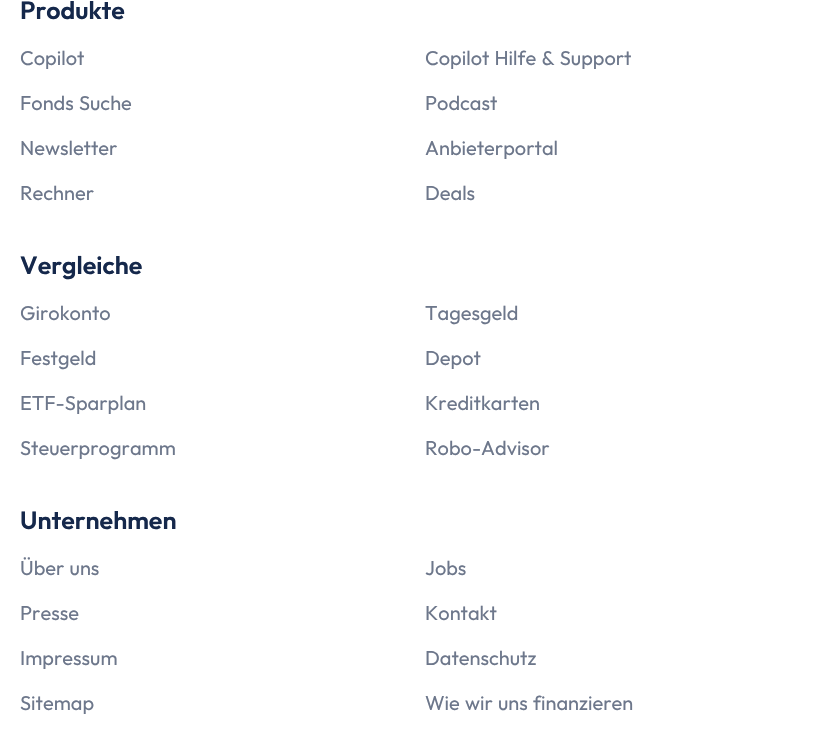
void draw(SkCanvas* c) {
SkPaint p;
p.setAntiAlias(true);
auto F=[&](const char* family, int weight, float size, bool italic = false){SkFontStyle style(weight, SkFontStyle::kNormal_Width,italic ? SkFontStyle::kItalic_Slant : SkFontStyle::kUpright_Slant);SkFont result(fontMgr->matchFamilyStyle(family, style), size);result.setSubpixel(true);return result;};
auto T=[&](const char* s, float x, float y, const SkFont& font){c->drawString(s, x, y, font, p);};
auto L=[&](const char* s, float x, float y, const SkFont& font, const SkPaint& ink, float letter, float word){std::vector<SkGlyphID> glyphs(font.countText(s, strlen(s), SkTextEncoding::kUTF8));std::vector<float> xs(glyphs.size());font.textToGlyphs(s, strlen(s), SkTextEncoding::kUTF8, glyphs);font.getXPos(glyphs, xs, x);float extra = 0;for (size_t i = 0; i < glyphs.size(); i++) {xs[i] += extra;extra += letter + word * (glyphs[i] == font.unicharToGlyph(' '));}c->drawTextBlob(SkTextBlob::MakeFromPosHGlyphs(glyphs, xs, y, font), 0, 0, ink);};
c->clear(0xffffffff);
auto f1 = F("Outfit",600,25);
p.setColor(0xff15284b);
T("Produkte",20,19,f1);
auto f2 = F("Outfit",400,20);
p.setColor(0xff6d778b);
T("Copilot",20,65,f2);
L("Copilot Hilfe & Support",425,65,f2,p,0,1);
L("Fonds Suche",20,110,f2,p,0,1);
T("Podcast",425,110,f2);
T("Newsletter",20,155,f2);
T("Anbieterportal",425,155,f2);
T("Rechner",20,200,f2);
T("Deals",425,200,f2);
p.setColor(0xff15284b);
T("Vergleiche",20,274,f1);
p.setColor(0xff6d778b);
T("Girokonto",20,320,f2);
T("Tagesgeld",425,320,f2);
T("Festgeld",20,365,f2);
T("Depot",425,365,f2);
T("ETF-Sparplan",20,410,f2);
T("Kreditkarten",425,410,f2);
T("Steuerprogramm",20,455,f2);
T("Robo-Advisor",425,455,f2);
p.setColor(0xff15284b);
T("Unternehmen",20,529,f1);
p.setColor(0xff6d778b);
L("Über uns",20,575,f2,p,0,1);
T("Jobs",425,575,f2);
T("Presse",20,620,f2);
T("Kontakt",425,620,f2);
T("Impressum",20,665,f2);
T("Datenschutz",425,665,f2);
T("Sitemap",20,710,f2);
L("Wie wir uns finanzieren",425,710,f2,p,0,1);
}
